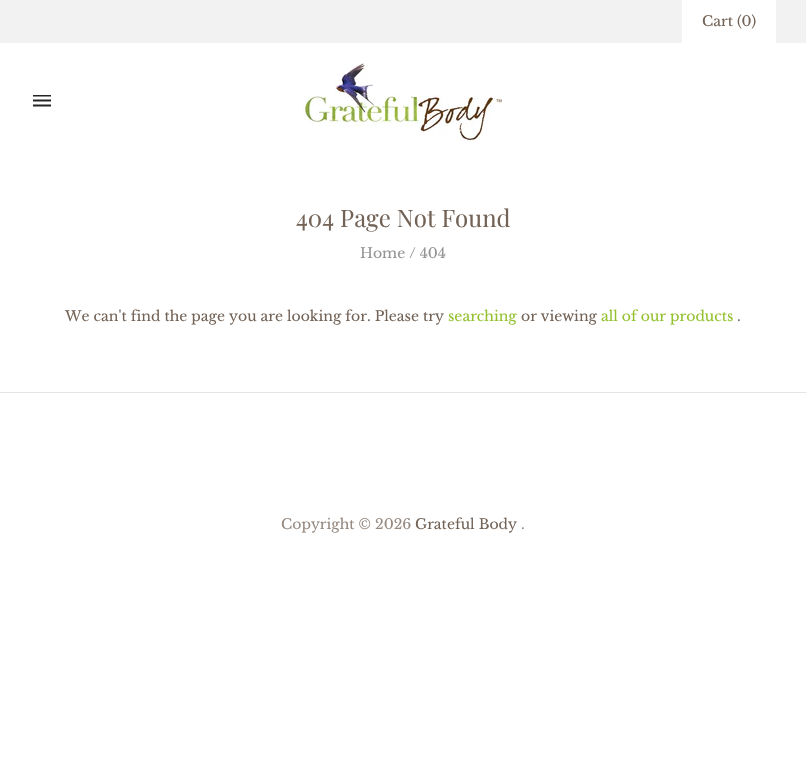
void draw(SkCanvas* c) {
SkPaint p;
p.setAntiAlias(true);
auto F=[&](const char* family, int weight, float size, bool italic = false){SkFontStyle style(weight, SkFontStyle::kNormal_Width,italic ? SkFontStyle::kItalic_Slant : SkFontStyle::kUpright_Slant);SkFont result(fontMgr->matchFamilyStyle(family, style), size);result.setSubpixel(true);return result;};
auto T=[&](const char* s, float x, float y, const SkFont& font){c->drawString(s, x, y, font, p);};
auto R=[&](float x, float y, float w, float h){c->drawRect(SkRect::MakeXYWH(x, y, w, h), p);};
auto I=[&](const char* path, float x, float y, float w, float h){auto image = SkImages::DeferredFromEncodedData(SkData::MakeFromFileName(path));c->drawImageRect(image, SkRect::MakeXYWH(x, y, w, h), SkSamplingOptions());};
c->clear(0xffffffff);
p.setColor(0xfff2f2f2);
R(0,0,806,43);
p.setColor(0xffffffff);
R(682,0,94,43);
auto f1 = F("Libre Baskerville",400,14);
p.setColor(0xff736357);
T("Cart (0)",702,26,f1);
I("1.png",33,95,18,12);
I("2.png",303,63,199,79);
auto f2 = F("Playfair Display",400,24);
T("404 Page Not Found",296,227,f2);
p.setColor(0xff949292);
T("Home / 404",360,258,f1);
p.setColor(0xff736357);
T("We can't find the page you are looking for. Please try",65,321,f1);
p.setColor(0xff94c130);
T("searching",448,321,f1);
p.setColor(0xff736357);
T("or viewing",521,321,f1);
p.setColor(0xff94c130);
T("all of our products",601,321,f1);
p.setColor(0xff736357);
T(".",737,321,f1);
p.setColor(0xffe4e4e4);
R(0,392,806,1);
p.setColor(0xff968a81);
T("Copyright © 2026",281,529,f1);
p.setColor(0xff736357);
T("Grateful Body",415,529,f1);
p.setColor(0xff968a81);
T(".",521,529,f1);
}
